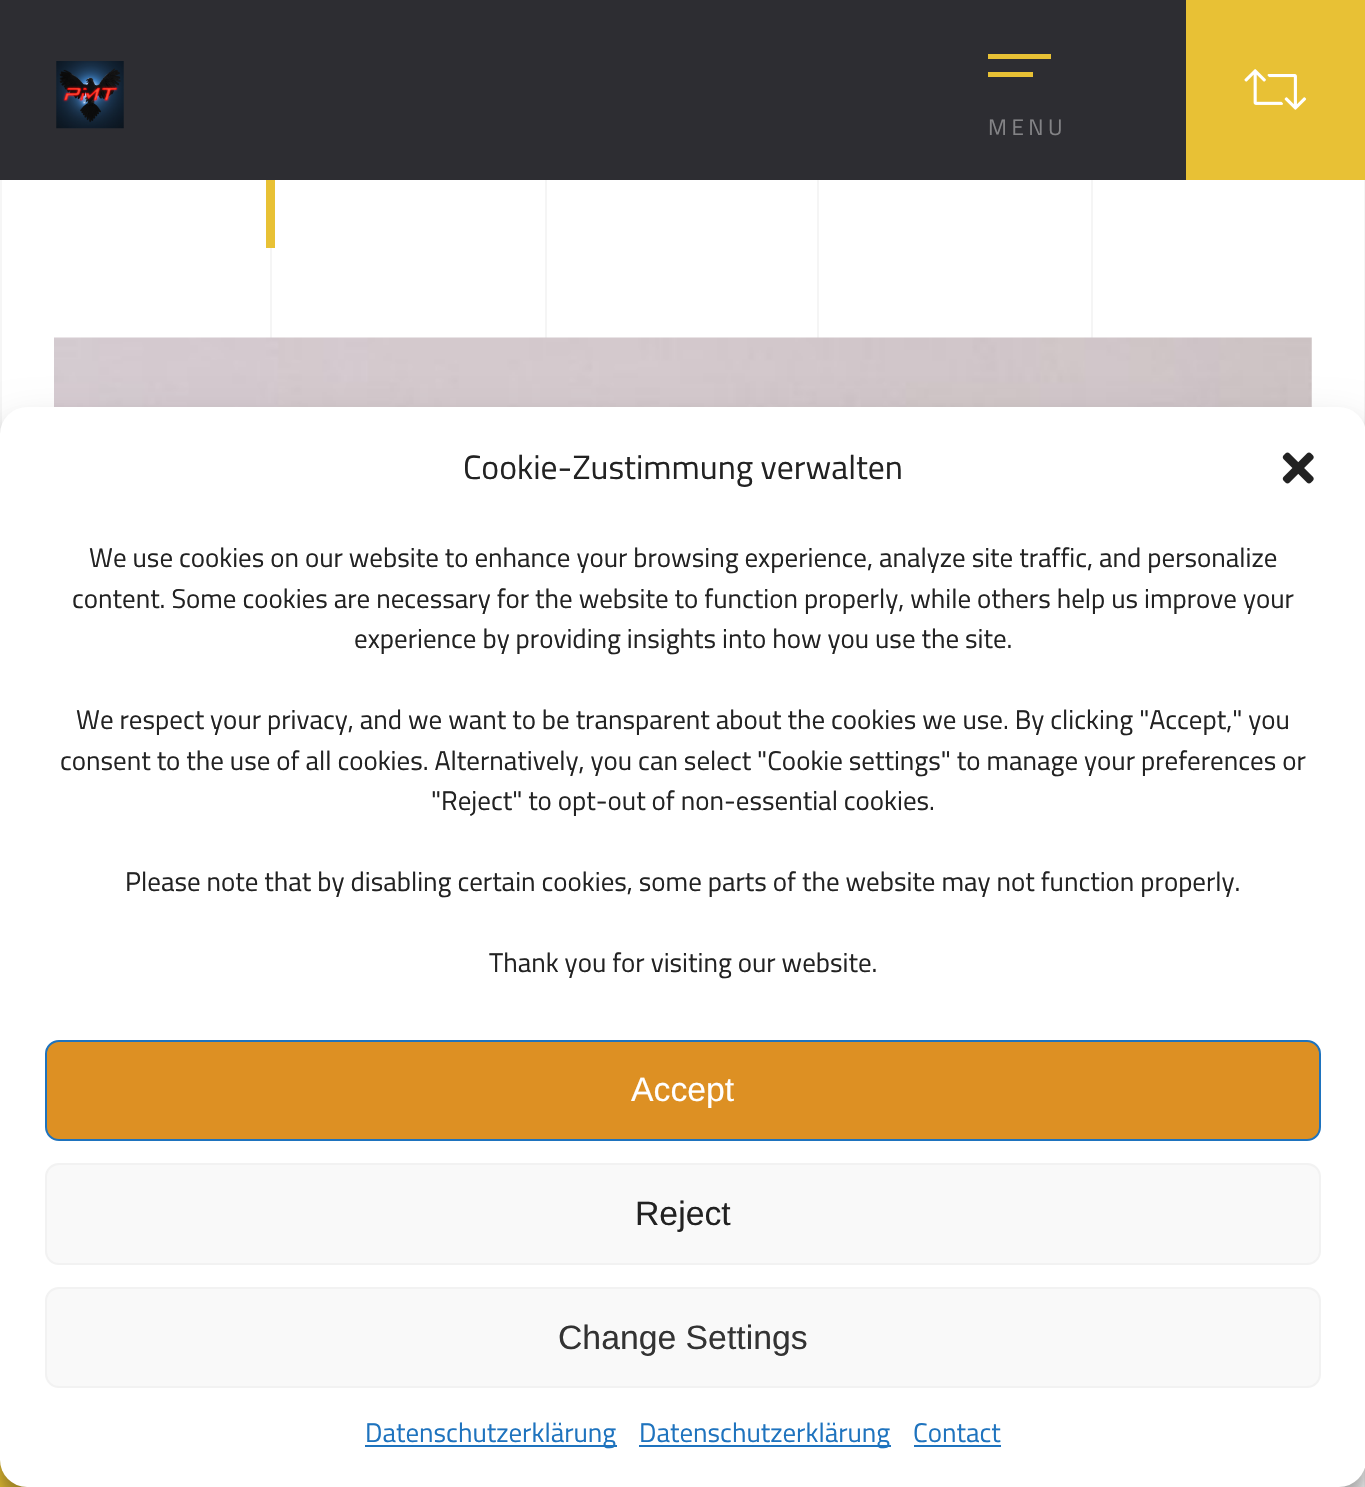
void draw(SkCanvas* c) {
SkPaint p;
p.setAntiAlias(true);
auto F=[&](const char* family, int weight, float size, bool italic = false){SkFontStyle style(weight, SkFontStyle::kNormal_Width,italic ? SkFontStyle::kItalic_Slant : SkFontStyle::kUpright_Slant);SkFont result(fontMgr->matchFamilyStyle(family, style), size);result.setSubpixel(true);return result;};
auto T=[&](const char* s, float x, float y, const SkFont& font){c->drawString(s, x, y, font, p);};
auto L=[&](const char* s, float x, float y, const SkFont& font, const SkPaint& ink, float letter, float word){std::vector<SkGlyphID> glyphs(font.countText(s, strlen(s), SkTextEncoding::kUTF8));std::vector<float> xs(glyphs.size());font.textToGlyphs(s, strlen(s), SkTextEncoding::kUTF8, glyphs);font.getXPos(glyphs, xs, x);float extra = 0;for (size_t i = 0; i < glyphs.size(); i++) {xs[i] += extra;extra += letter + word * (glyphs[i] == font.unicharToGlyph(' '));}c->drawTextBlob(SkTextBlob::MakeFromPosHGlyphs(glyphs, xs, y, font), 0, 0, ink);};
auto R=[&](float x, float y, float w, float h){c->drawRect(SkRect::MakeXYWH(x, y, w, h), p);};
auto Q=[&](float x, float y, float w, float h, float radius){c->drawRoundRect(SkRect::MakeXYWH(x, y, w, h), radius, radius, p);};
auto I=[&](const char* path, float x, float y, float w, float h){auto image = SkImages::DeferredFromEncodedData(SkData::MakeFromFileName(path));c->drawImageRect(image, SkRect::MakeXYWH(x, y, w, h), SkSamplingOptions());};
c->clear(0xff2d2d32);
I("1.png",56,61,68,68);
p.setColor(0xffe8c135);
R(988,54,63,5);
R(988,72,45,5);
auto f1 = F("Titillium Web",400,22.5);
p.setColor(0xff838386);
L("MENU",988,135,f1,p,4.5,0);
p.setColor(0xffe8c135);
R(1186,0,179,180);
I("2.png",1244,69,63,41);
p.setColor(0xffffffff);
R(2,180,1362,1307);
p.setColor(0xfff5f5f5);
R(270,248,2,90);
p.setColor(0xfff6f6f6);
R(0,180,2,254);
p.setColor(0xffe8c135);
R(266,180,9,68);
p.setColor(0xfff5f5f5);
R(545,180,2,158);
R(817,180,2,158);
R(1091,180,2,158);
R(1364,180,1,1307);
I("3.png",54,337,1258,70);
p.setColor(0xffe8c135);
R(0,1460,27,27);
p.setColor(0x3b000000);
p.setMaskFilter(SkMaskFilter::MakeBlur(kNormal_SkBlurStyle, 7));
c->drawRoundRect(SkRect::MakeXYWH(0,421,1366,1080),27,27,p);
p.setMaskFilter(nullptr);
p.setColor(0x30000000);
p.setMaskFilter(SkMaskFilter::MakeBlur(kNormal_SkBlurStyle, 22.5));
c->drawRoundRect(SkRect::MakeXYWH(0,430,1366,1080),27,27,p);
p.setMaskFilter(nullptr);
p.setColor(0xffffffff);
Q(0,407,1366,1080,27);
auto f2 = F("Titillium Web",400,33.75);
p.setColor(0xff222222);
T("Cookie-Zustimmung verwalten",463,479,f2);
I("4.png",1282,452,32,32);
auto f3 = F("Titillium Web",400,27);
T("We use cookies on our website to enhance your browsing experience, analyze site traffic, and personalize",89,567,f3);
T("content. Some cookies are necessary for the website to function properly, while others help us improve your",72,608,f3);
T("experience by providing insights into how you use the site.",354,648,f3);
T("We respect your privacy, and we want to be transparent about the cookies we use. By clicking \"Accept,\" you",76,729,f3);
T("consent to the use of all cookies. Alternatively, you can select \"Cookie settings\" to manage your preferences or",60,770,f3);
T("\"Reject\" to opt-out of non-essential cookies.",431,810,f3);
T("Please note that by disabling certain cookies, some parts of the website may not function properly.",125,891,f3);
T("Thank you for visiting our website.",489,972,f3);
p.setColor(0xffdd9023);
c->drawRoundRect(SkRect::MakeXYWH(46,1041,1274,99),13,13,p);
p.setStroke(true);
p.setStrokeWidth(2);
p.setColor(0xff1e73be);
c->drawRoundRect(SkRect::MakeXYWH(46,1041,1274,99),13,13,p);
auto f4 = F("Liberation Sans",400,33.75);
p.setStroke(false);
p.setColor(0xffffffff);
T("Accept",631,1101,f4);
p.setColor(0xfff9f9f9);
c->drawRoundRect(SkRect::MakeXYWH(46,1164,1274,100),13,13,p);
p.setStroke(true);
p.setColor(0xfff2f2f2);
c->drawRoundRect(SkRect::MakeXYWH(46,1164,1274,100),13,13,p);
p.setStroke(false);
p.setColor(0xff222222);
T("Reject",635,1225,f4);
p.setColor(0xfff9f9f9);
c->drawRoundRect(SkRect::MakeXYWH(46,1288,1274,99),13,13,p);
p.setStroke(true);
p.setColor(0xfff2f2f2);
c->drawRoundRect(SkRect::MakeXYWH(46,1288,1274,99),13,13,p);
p.setStroke(false);
p.setColor(0xff333333);
T("Change Settings",558,1349,f4);
p.setColor(0xff1e73be);
R(365,1445,252,2);
T("Datenschutzerklärung",365,1442,f3);
R(639,1445,252,2);
T("Datenschutzerklärung",639,1442,f3);
T("Contact",913,1442,f3);
R(914,1445,87,2);
}
